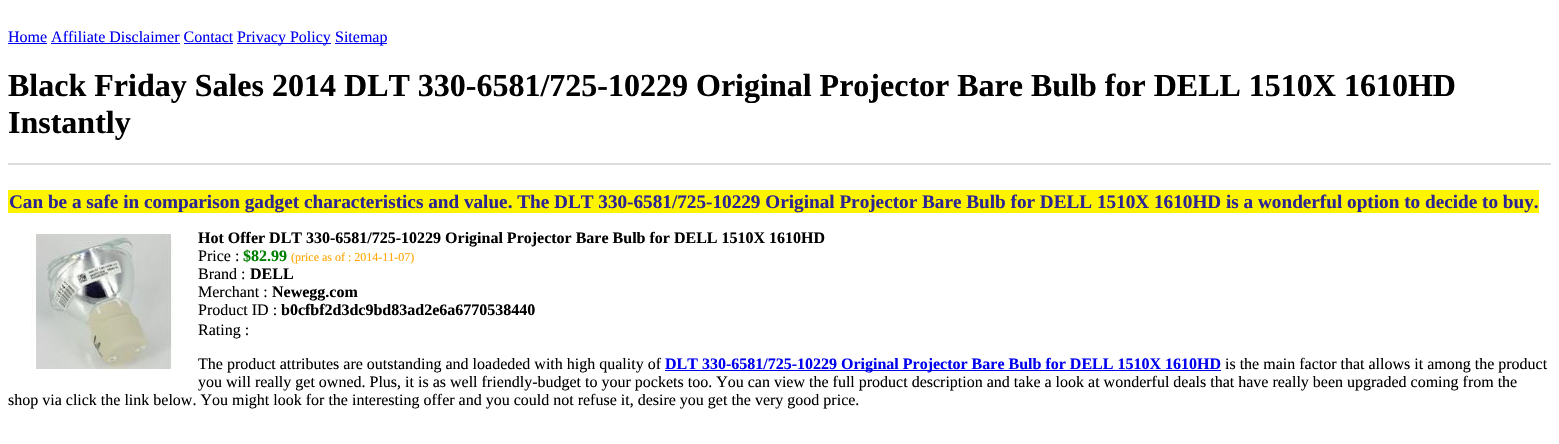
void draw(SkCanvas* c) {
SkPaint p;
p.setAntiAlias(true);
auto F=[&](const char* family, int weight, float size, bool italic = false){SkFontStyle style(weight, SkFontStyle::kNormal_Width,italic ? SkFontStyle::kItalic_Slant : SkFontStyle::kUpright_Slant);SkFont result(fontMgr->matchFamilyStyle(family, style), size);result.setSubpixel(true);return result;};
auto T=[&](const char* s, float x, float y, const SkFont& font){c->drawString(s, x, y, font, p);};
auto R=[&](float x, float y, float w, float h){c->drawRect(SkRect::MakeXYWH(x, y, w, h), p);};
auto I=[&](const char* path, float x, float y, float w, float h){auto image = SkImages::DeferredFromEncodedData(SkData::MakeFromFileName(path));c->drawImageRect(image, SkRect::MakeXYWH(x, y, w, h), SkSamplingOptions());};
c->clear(0xffffffff);
auto f1 = F("Liberation Serif",400,16);
p.setColor(0xff0000ee);
T("Home Affiliate Disclaimer Contact",8,42,f1);
R(8,43,39,1);
R(237,43,94,1);
T("Privacy Policy",237,42,f1);
R(335,43,52,1);
T("Sitemap",335,42,f1);
R(51,43,129,1);
R(184,43,49,1);
auto f2 = F("Liberation Serif",700,32);
p.setColor(0xff000000);
T("Black Friday Sales 2014 DLT 330-6581/725-10229 Original Projector Bare Bulb for DELL 1510X 1610HD",8,96,f2);
T("Instantly",8,133,f2);
p.setColor(0xffdddddd);
R(8,163,1543,2);
p.setColor(0xfffff400);
R(8,190,1531,23);
auto f3 = F("Liberation Serif",700,19.2);
p.setColor(0xff2b2492);
T("Can be a safe in comparison gadget characteristics and value. The DLT 330-6581/725-10229 Original Projector Bare Bulb for DELL 1510X 1610HD is a wonderful option to decide to buy.",9,208,f3);
I("1.png",31,234,142,135);
auto f4 = F("Liberation Serif",700,16);
p.setColor(0xff000000);
T("Hot Offer DLT 330-6581/725-10229 Original Projector Bare Bulb for DELL 1510X 1610HD",198,243,f4);
T("Price :",198,261,f1);
p.setColor(0xff008000);
T("$82.99",243,261,f4);
auto f5 = F("Liberation Serif",400,12);
p.setColor(0xffffa500);
T("(price as of : 2014-11-07)",291,261,f5);
p.setColor(0xff000000);
T("Brand :",198,279,f1);
T("DELL",250,279,f4);
T("Merchant :",198,297,f1);
T("Newegg.com",272,297,f4);
T("Product ID :",198,315,f1);
T("b0cfbf2d3dc9bd83ad2e6a6770538440",281,315,f4);
T("Rating :",198,335,f1);
T("The product attributes are outstanding and loadeded with high quality of",198,369,f1);
p.setColor(0xff0000ee);
R(665,370,556,1);
T("DLT 330-6581/725-10229 Original Projector Bare Bulb for DELL 1510X 1610HD",665,369,f4);
p.setColor(0xff000000);
T("is the main factor that allows it among the product",1225,369,f1);
T("you will really get owned. Plus, it is as well friendly-budget to your pockets too. You can view the full product description and take a look at wonderful deals that have really been upgraded coming from the",198,387,f1);
T("shop via click the link below. You might look for the interesting offer and you could not refuse it, desire you get the very good price.",8,405,f1);
}
